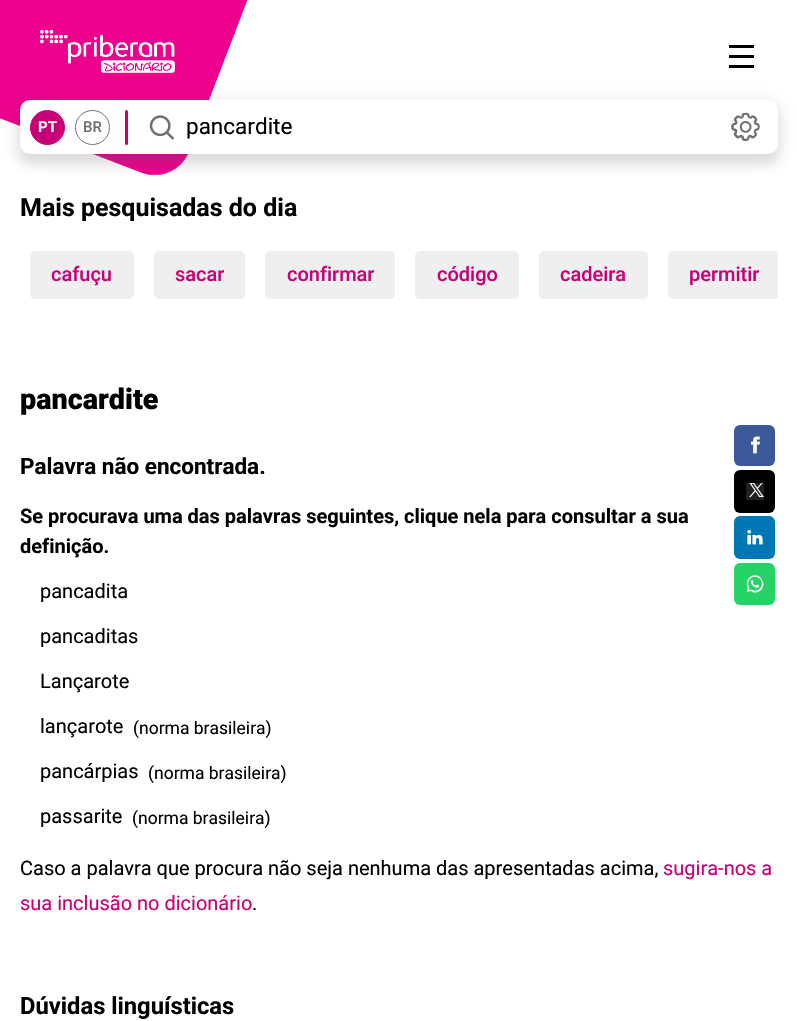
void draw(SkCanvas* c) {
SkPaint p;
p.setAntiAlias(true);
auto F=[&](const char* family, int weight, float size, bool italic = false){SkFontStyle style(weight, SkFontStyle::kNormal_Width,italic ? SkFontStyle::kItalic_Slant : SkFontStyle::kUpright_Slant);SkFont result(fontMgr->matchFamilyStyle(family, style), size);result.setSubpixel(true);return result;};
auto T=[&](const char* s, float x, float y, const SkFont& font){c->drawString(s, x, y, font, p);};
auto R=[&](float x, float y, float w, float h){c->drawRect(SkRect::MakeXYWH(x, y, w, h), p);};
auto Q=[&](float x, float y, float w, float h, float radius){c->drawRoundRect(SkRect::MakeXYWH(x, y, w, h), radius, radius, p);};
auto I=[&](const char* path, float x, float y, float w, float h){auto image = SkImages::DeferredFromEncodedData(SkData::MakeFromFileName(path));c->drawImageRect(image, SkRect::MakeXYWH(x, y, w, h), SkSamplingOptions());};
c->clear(0xffffffff);
I("1.png",0,0,248,176);
I("2.png",40,30,135,43);
p.setColor(0xff000000);
R(729,45,25,3);
R(729,55,25,3);
R(729,65,25,3);
p.setColor(0x1f52474e);
p.setMaskFilter(SkMaskFilter::MakeBlur(kNormal_SkBlurStyle, 9));
c->drawRoundRect(SkRect::MakeXYWH(18,101,762,59),13,13,p);
p.setMaskFilter(nullptr);
p.setMaskFilter(SkMaskFilter::MakeBlur(kNormal_SkBlurStyle, 6));
c->drawRoundRect(SkRect::MakeXYWH(19,109,760,56),11,11,p);
p.setMaskFilter(nullptr);
p.setColor(0xffffffff);
Q(20,100,758,54,10);
p.setColor(0xffc70077);
c->drawCircle(47.5,127.5,17,p);
p.setStroke(true);
p.setStrokeWidth(1);
c->drawCircle(47.5,127.5,17,p);
auto f1 = F("Roboto",700,15);
p.setStroke(false);
p.setColor(0xffffffff);
T("PT",38,132,f1);
p.setStroke(true);
p.setColor(0xff707070);
c->drawCircle(92.5,127.5,17,p);
auto f2 = F("Roboto",500,15);
p.setStroke(false);
T("BR",83,132,f2);
p.setColor(0xffc70077);
Q(125,110,3,35,1.5);
I("3.png",149,115,25,25);
auto f3 = F("Roboto",400,22.5);
p.setColor(0xff000000);
T("pancardite",186,134,f3);
I("4.png",731,112,29,29);
auto f4 = F("Roboto",700,25);
T("Mais pesquisadas do dia",20,216,f4);
p.setColor(0xffefefef);
Q(30,251,104,48,5);
auto f5 = F("Roboto",500,20);
p.setColor(0xffc70077);
T("cafuçu",51,281,f5);
p.setColor(0xffefefef);
Q(154,251,91,48,5);
p.setColor(0xffc70077);
T("sacar",175,281,f5);
p.setColor(0xffefefef);
Q(265,251,130,48,5);
p.setColor(0xffc70077);
T("confirmar",287,281,f5);
p.setColor(0xffefefef);
Q(415,251,104,48,5);
p.setColor(0xffc70077);
T("código",437,281,f5);
p.setColor(0xffefefef);
Q(539,251,109,48,5);
p.setColor(0xffc70077);
T("cadeira",560,281,f5);
c->save();
c->clipRect(SkRect::MakeXYWH(20,251,758,48));
p.setColor(0xffefefef);
Q(668,251,112,48,5);
c->restore();
p.setColor(0xffc70077);
T("permitir",689,281,f5);
auto f6 = F("Roboto",900,28.75);
p.setColor(0xff000000);
T("pancardite",20,409,f6);
p.setColor(0xff3b5998);
Q(734,425,41,41,6);
I("5.png",751,436,9,18);
p.setColor(0xff000000);
Q(734,470,41,43,6);
I("6.png",746,483,18,17);
p.setColor(0xff0077b5);
Q(734,516,41,43,6);
I("7.png",747,529,16,16);
p.setColor(0xff25d366);
Q(734,563,41,42,6);
I("8.png",746,575,18,18);
auto f7 = F("Roboto",700,22.5);
p.setColor(0xff000000);
T("Palavra não encontrada.",20,474,f7);
auto f8 = F("Roboto",700,20);
T("Se procurava uma das palavras seguintes, clique nela para consultar a sua",20,523,f8);
T("definição.",20,553,f8);
auto f9 = F("Roboto",400,20);
T("pancadita",40,598,f9);
T("pancaditas",40,643,f9);
T("Lançarote",40,688,f9);
T("lançarote",40,733,f9);
auto f10 = F("Roboto",400,17.5);
T("(norma brasileira)",133,734,f10);
T("pancárpias",40,778,f9);
T("(norma brasileira)",148,779,f10);
T("passarite",40,823,f9);
T("(norma brasileira)",132,824,f10);
T("Caso a palavra que procura não seja nenhuma das apresentadas acima,",20,875,f9);
p.setColor(0xffc70077);
T("sugira-nos a",663,875,f9);
T("sua inclusão no dicionário",20,910,f9);
p.setColor(0xff000000);
T(".",252,910,f9);
auto f11 = F("Roboto",700,23.75);
T("Dúvidas linguísticas",20,1014,f11);
}
